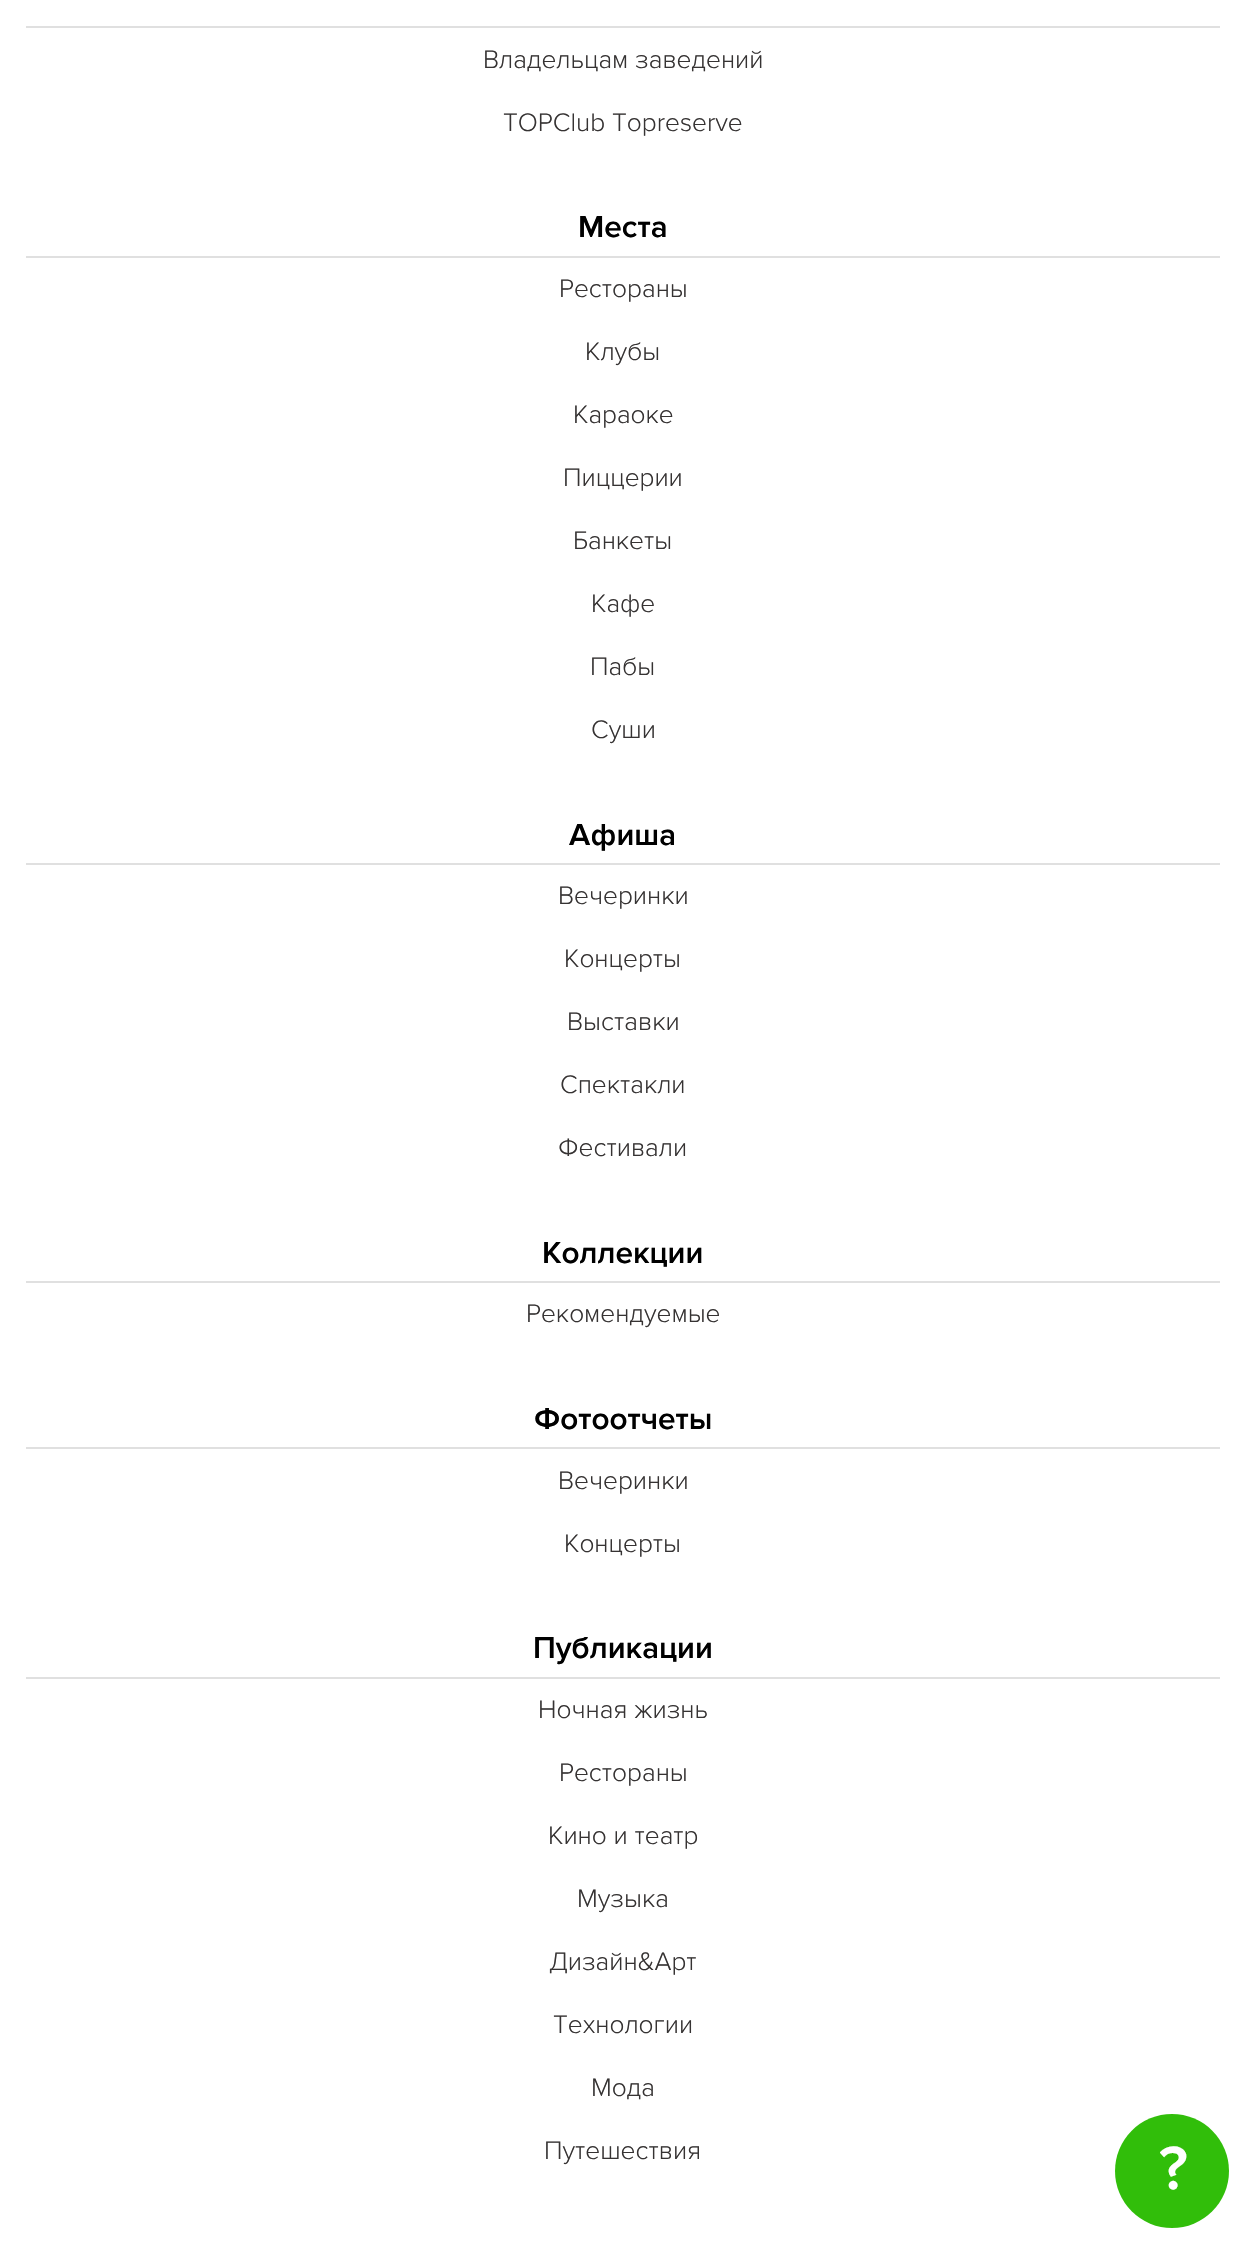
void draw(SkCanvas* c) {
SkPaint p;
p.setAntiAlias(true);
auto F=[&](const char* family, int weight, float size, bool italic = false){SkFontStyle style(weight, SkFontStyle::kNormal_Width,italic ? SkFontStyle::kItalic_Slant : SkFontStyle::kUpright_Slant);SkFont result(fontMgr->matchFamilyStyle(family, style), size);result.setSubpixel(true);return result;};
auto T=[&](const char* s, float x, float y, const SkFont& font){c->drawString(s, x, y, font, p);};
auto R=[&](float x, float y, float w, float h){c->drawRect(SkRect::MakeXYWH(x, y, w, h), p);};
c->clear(0xffffffff);
p.setColor(0xffe0e0e0);
R(26,26,1194,2);
auto f1 = F("Proxima Nova",300,26.25);
p.setColor(0xff363333);
T("Владельцам заведений",483,68,f1);
T("TOPClub Topreserve",503,131,f1);
p.setColor(0xffe0e0e0);
R(26,256,1194,2);
auto f2 = F("Proxima Nova",600,31.5);
p.setColor(0xff000000);
T("Места",578,237,f2);
p.setColor(0xff363333);
T("Рестораны",559,297,f1);
T("Клубы",585,360,f1);
T("Караоке",573,423,f1);
T("Пиццерии",563,486,f1);
T("Банкеты",573,549,f1);
T("Кафе",591,612,f1);
T("Пабы",590,675,f1);
T("Суши",591,738,f1);
p.setColor(0xffe0e0e0);
R(26,863,1194,2);
p.setColor(0xff000000);
T("Афиша",569,845,f2);
p.setColor(0xff363333);
T("Вечеринки",558,904,f1);
T("Концерты",564,967,f1);
T("Выставки",567,1030,f1);
T("Спектакли",560,1093,f1);
T("Фестивали",558,1156,f1);
p.setColor(0xffe0e0e0);
R(26,1281,1194,2);
p.setColor(0xff000000);
T("Коллекции",542,1263,f2);
p.setColor(0xff363333);
T("Рекомендуемые",526,1322,f1);
p.setColor(0xffe0e0e0);
R(26,1447,1194,2);
p.setColor(0xff000000);
T("Фотоотчеты",534,1429,f2);
p.setColor(0xff363333);
T("Вечеринки",558,1489,f1);
T("Концерты",564,1552,f1);
p.setColor(0xffe0e0e0);
R(26,1677,1194,2);
p.setColor(0xff000000);
T("Публикации",533,1658,f2);
p.setColor(0xff363333);
T("Ночная жизнь",538,1718,f1);
T("Рестораны",559,1781,f1);
T("Кино и театр",548,1844,f1);
T("Музыка",577,1907,f1);
T("Дизайн&Арт",549,1970,f1);
T("Технологии",553,2033,f1);
T("Мода",591,2096,f1);
T("Путешествия",544,2159,f1);
p.setColor(0xff31be0a);
c->drawCircle(1172,2171,57,p);
auto f3 = F("Proxima Nova",600,63);
p.setColor(0xffffffff);
T("?",1159,2189,f3);
}
